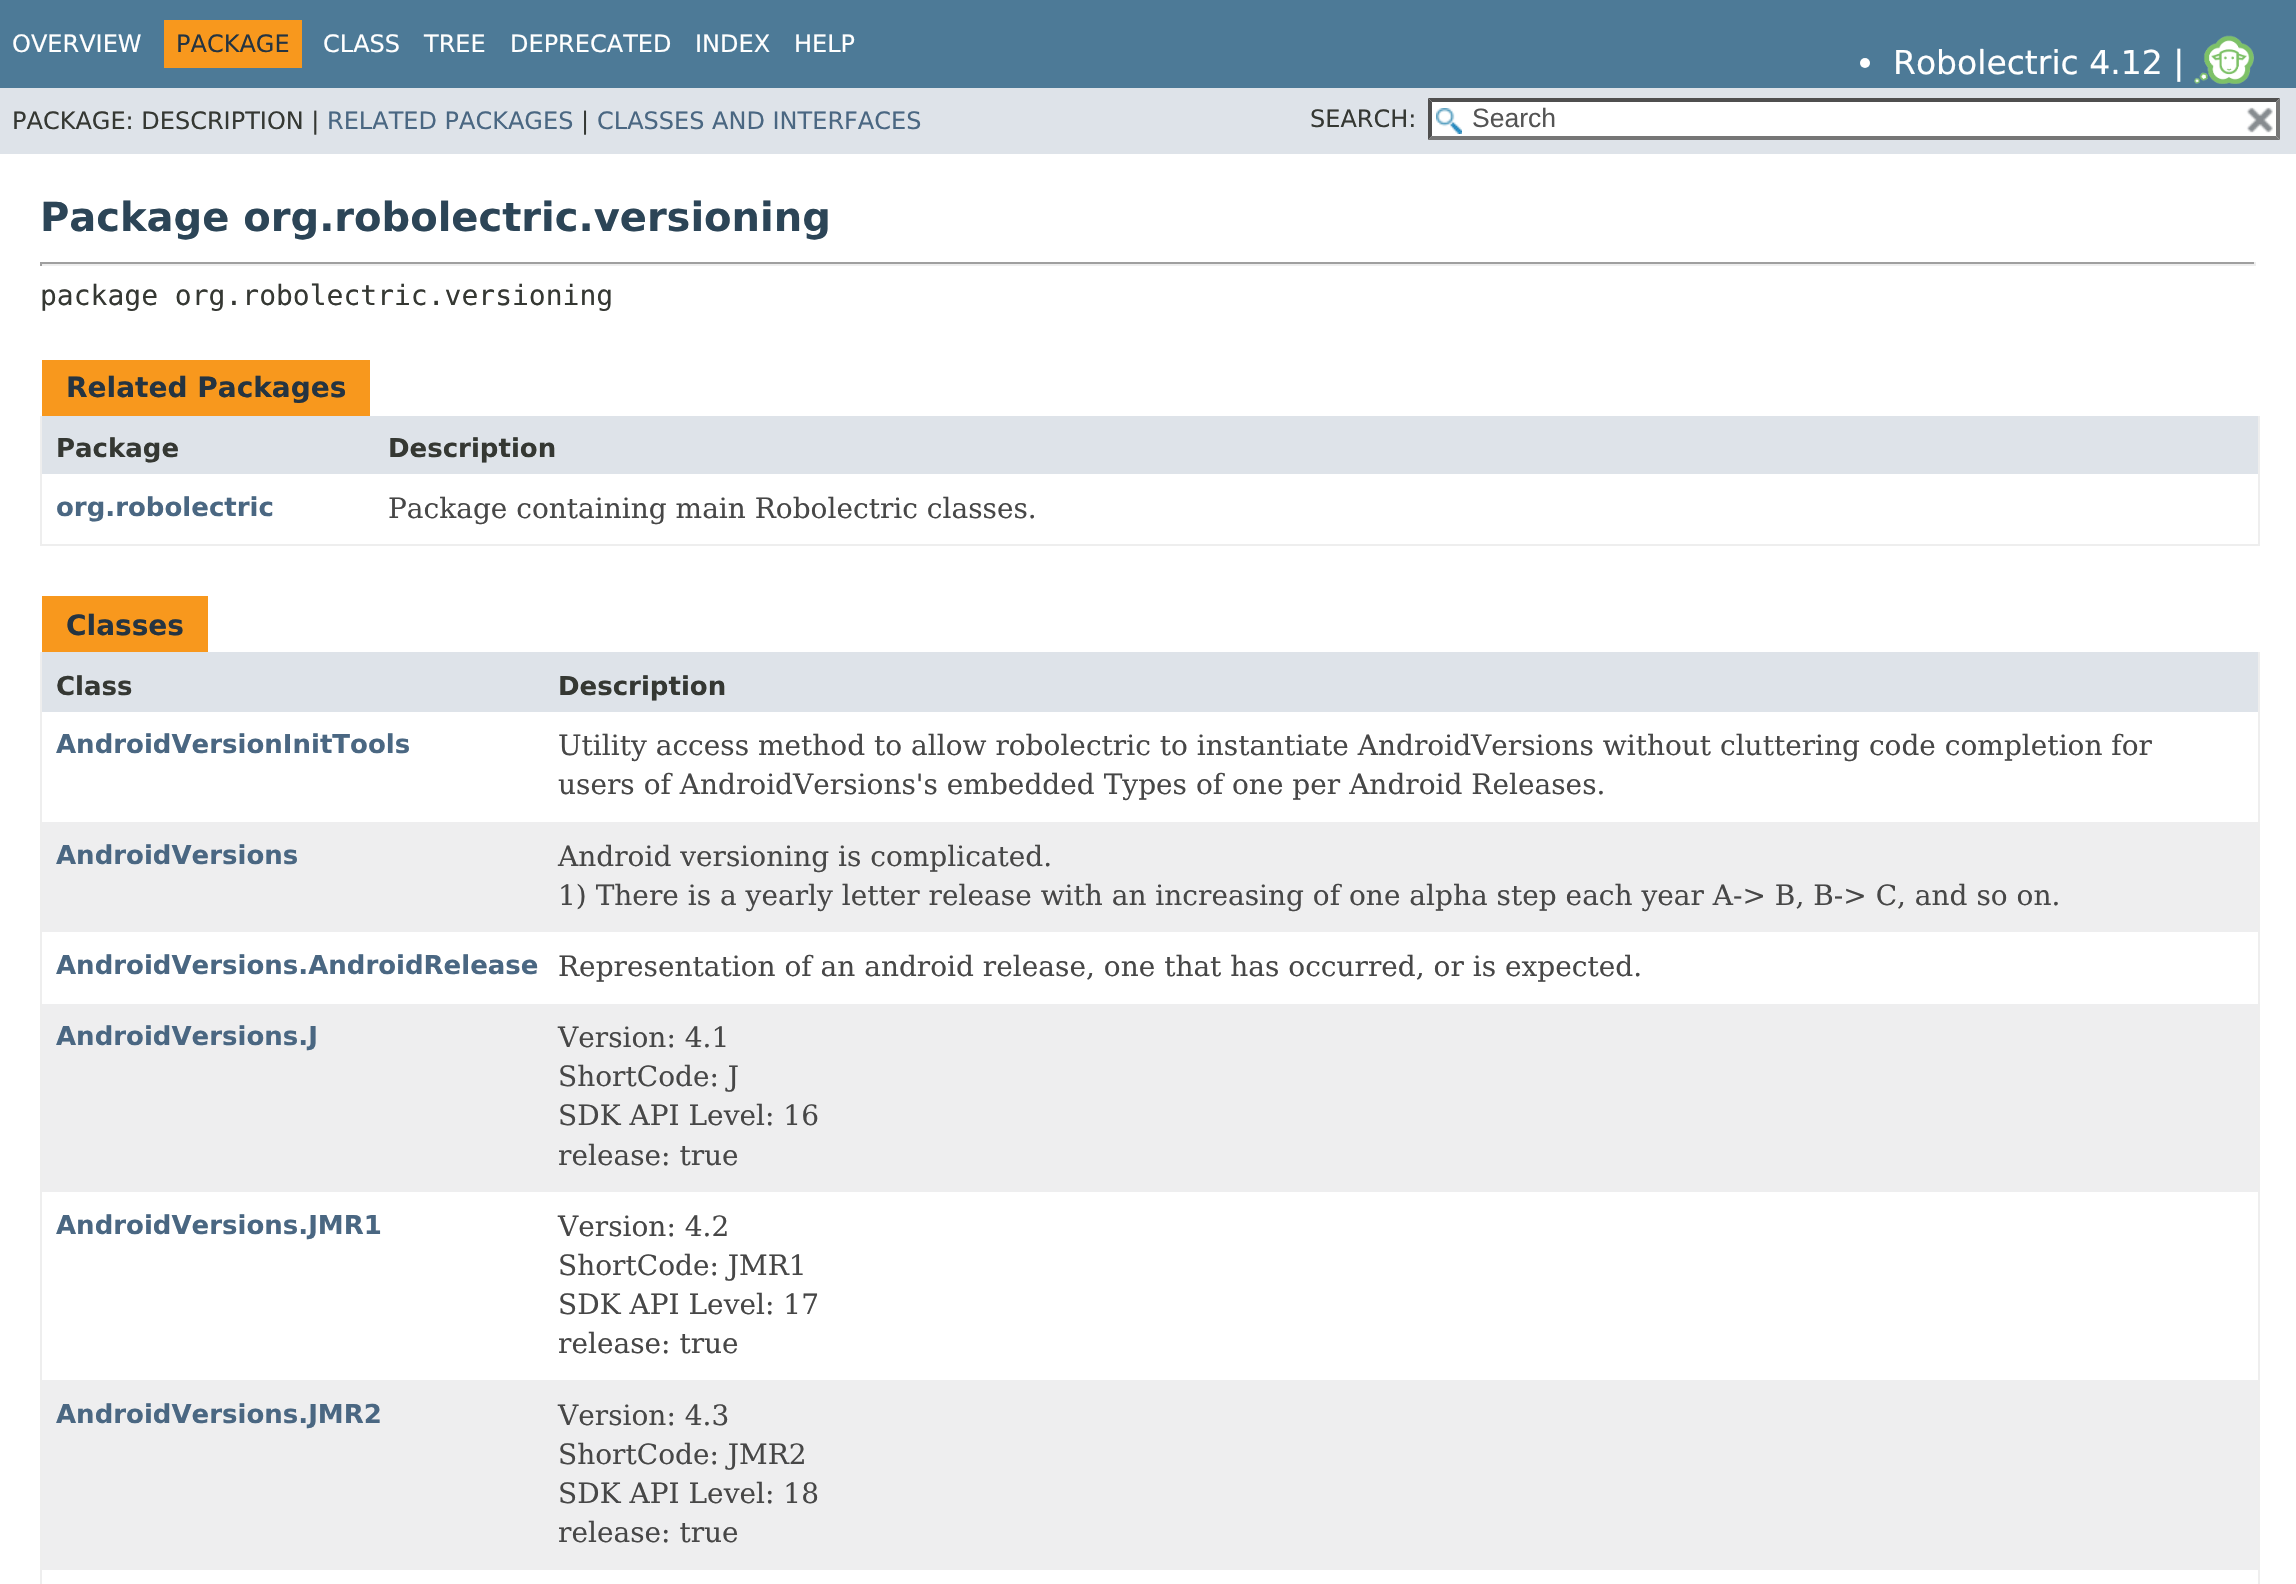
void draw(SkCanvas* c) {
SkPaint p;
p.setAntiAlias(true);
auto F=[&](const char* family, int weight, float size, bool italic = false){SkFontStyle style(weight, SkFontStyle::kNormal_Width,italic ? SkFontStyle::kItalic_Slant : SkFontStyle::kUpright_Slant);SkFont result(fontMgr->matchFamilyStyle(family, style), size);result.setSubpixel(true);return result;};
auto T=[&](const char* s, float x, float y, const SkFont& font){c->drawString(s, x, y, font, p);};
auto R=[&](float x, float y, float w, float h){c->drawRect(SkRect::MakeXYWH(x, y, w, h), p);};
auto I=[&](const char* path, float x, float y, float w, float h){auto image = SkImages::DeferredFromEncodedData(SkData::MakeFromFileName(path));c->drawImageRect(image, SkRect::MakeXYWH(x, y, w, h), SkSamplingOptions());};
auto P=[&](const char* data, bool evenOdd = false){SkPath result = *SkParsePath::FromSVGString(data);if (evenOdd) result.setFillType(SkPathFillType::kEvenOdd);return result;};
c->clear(0xffffffff);
p.setColor(0xff4d7a97);
R(0,0,2296,88);
auto f1 = F("DejaVu Sans",400,24);
p.setColor(0xffffffff);
T("OVERVIEW",12,52,f1);
p.setColor(0xfff8981d);
R(164,20,138,48);
p.setColor(0xff253441);
T("PACKAGE",176,52,f1);
p.setColor(0xffffffff);
T("CLASS",323,52,f1);
T("TREE",424,52,f1);
T("DEPRECATED",510,52,f1);
T("INDEX",695,52,f1);
T("HELP",794,52,f1);
c->drawCircle(1865,63,5,p);
auto f2 = F("DejaVu Sans",400,33);
T("Robolectric 4.12 |",1893,74,f2);
I("1.png",2194,35,60,49);
p.setColor(0xffdee3e9);
R(0,88,2296,66);
p.setColor(0xff353833);
T("PACKAGE: DESCRIPTION |",12,129,f1);
p.setColor(0xff4a6782);
T("RELATED PACKAGES",327,129,f1);
p.setColor(0xff353833);
T("|",581,129,f1);
p.setColor(0xff4a6782);
T("CLASSES AND INTERFACES",597,129,f1);
p.setColor(0xff353833);
T("SEARCH:",1310,127,f1);
p.setColor(0xffffffff);
R(1428,98,852,42);
I("2.png",1436,108,26,26);
p.setColor(0xff4f4f4f);
c->drawPath(P("M1428 98h852l-4 4h-844z"),p);
p.setColor(0xff767676);
c->drawPath(P("M2280 98v42l-4-4v-34z"),p);
c->drawPath(P("M2280 140h-852l4-4h844z"),p);
p.setColor(0xff4f4f4f);
c->drawPath(P("M1428 140v-42l4 4v34z"),p);
auto f3 = F("Liberation Sans",400,26.5);
p.setColor(0xff545454);
T("Search",1472,127,f3);
I("3.png",2246,107,27,26);
auto f4 = F("DejaVu Sans",700,40);
p.setColor(0xff2c4557);
T("Package org.robolectric.versioning",40,231,f4);
p.setColor(0xff9f9f9f);
R(40,262,2216,2);
p.setColor(0xffeeeeee);
R(2254,262,2,4);
R(40,264,2216,2);
p.setColor(0xff9f9f9f);
R(40,262,2,4);
auto f5 = F("DejaVu Sans Mono",400,28);
p.setColor(0xff353833);
T("package org.robolectric.versioning",40,305,f5);
p.setColor(0xfff8981d);
R(42,360,328,56);
auto f6 = F("DejaVu Sans",700,28);
p.setColor(0xff253441);
T("Related Packages",66,397,f6);
p.setColor(0xffeeeeee);
R(2258,416,2,130);
R(40,544,2220,2);
R(40,416,2,130);
p.setColor(0xffdee3e9);
R(42,416,2216,58);
auto f7 = F("DejaVu Sans",700,26);
p.setColor(0xff353833);
T("Package",56,457,f7);
T("Description",388,457,f7);
p.setColor(0xff4a6782);
T("org.robolectric",56,516,f7);
auto f8 = F("DejaVu Serif",400,28);
p.setColor(0xff474747);
T("Package containing main Robolectric classes.",388,518,f8);
p.setColor(0xfff8981d);
R(42,596,166,56);
p.setColor(0xff253441);
T("Classes",66,635,f6);
p.setColor(0xffeeeeee);
R(2258,652,2,932);
R(40,652,2,932);
p.setColor(0xffdee3e9);
R(42,652,2216,60);
p.setColor(0xff353833);
T("Class",56,695,f7);
T("Description",558,695,f7);
p.setColor(0xff4a6782);
T("AndroidVersionInitTools",56,753,f7);
p.setColor(0xff474747);
T("Utility access method to allow robolectric to instantiate AndroidVersions without cluttering code completion for",558,755,f8);
T("users of AndroidVersions's embedded Types of one per Android Releases.",558,794,f8);
p.setColor(0xffeeeeef);
R(42,822,2216,110);
p.setColor(0xff4a6782);
T("AndroidVersions",56,864,f7);
p.setColor(0xff474747);
T("Android versioning is complicated.",558,866,f8);
T("1) There is a yearly letter release with an increasing of one alpha step each year A-> B, B-> C, and so on.",558,905,f8);
p.setColor(0xff4a6782);
T("AndroidVersions.AndroidRelease",56,974,f7);
p.setColor(0xff474747);
T("Representation of an android release, one that has occurred, or is expected.",558,976,f8);
p.setColor(0xffeeeeef);
R(42,1004,2216,188);
p.setColor(0xff4a6782);
T("AndroidVersions.J",56,1045,f7);
p.setColor(0xff474747);
T("Version: 4.1",558,1047,f8);
T("ShortCode: J",558,1086,f8);
T("SDK API Level: 16",558,1125,f8);
T("release: true",558,1165,f8);
p.setColor(0xff4a6782);
T("AndroidVersions.JMR1",56,1234,f7);
p.setColor(0xff474747);
T("Version: 4.2",558,1236,f8);
T("ShortCode: JMR1",558,1275,f8);
T("SDK API Level: 17",558,1314,f8);
T("release: true",558,1353,f8);
p.setColor(0xffeeeeef);
R(42,1380,2216,190);
p.setColor(0xff4a6782);
T("AndroidVersions.JMR2",56,1423,f7);
p.setColor(0xff474747);
T("Version: 4.3",558,1425,f8);
T("ShortCode: JMR2",558,1464,f8);
T("SDK API Level: 18",558,1503,f8);
T("release: true",558,1542,f8);
}
